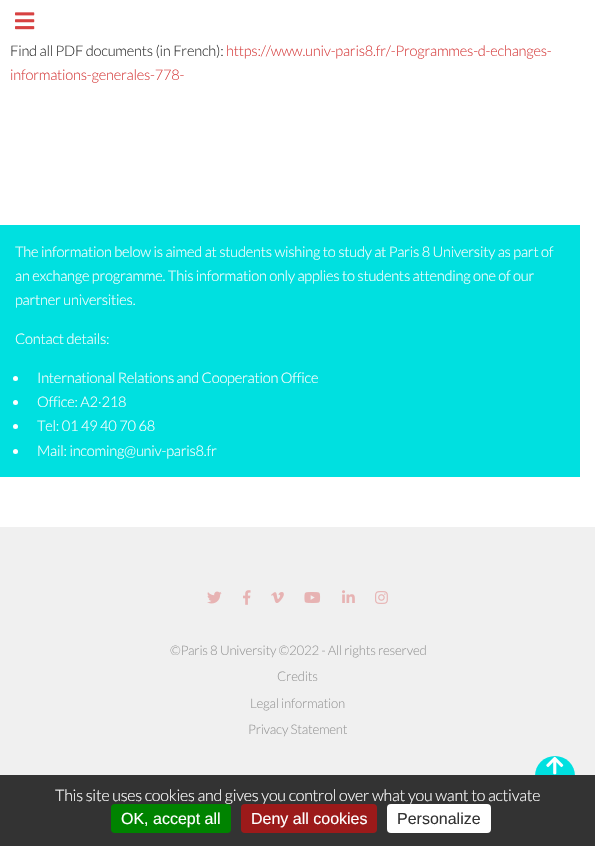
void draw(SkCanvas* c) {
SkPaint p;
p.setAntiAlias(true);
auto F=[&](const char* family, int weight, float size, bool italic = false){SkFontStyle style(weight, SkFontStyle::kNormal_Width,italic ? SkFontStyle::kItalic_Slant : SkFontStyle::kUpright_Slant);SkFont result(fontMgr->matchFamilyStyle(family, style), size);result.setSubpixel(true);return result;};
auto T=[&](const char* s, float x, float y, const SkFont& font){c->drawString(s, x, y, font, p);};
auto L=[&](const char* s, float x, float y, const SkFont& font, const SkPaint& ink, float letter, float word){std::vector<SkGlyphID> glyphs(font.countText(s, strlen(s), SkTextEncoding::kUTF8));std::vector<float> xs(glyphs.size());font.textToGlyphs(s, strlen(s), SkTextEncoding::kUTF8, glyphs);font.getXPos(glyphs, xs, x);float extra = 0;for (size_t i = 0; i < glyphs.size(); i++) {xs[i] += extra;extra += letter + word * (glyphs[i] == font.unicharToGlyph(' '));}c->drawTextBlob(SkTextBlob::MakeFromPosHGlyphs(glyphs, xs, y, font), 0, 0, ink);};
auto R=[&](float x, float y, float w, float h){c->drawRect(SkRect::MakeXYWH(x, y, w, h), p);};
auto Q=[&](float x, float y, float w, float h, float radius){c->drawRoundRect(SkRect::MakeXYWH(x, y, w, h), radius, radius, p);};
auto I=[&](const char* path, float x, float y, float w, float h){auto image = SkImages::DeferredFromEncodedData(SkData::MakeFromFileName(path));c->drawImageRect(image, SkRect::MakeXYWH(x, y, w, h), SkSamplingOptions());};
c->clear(0xffffffff);
I("1.png",15,12,20,18);
auto f1 = F("Lato",300,14.65);
p.setColor(0xff333333);
L("Find all PDF documents (in French):",10,56,f1,p,-.22,0);
p.setColor(0xffd74141);
L("https://www.univ-paris8.fr/-Programmes-d-echanges-",226,56,f1,p,-.22,0);
L("informations-generales-778-",10,80,f1,p,-.22,0);
p.setColor(0xff00e0e0);
R(0,225,580,252);
p.setColor(0xffffffff);
L("The information below is aimed at students wishing to study at Paris 8 University as part of",15,257,f1,p,-.22,0);
L("an exchange programme. This information only applies to students attending one of our",15,281,f1,p,-.22,0);
L("partner universities.",15,305,f1,p,-.22,0);
L("Contact details:",15,344,f1,p,-.22,0);
c->drawCircle(15.5,378.5,2.5,p);
L("International Relations and Cooperation Office",37,383,f1,p,-.22,0);
c->drawCircle(15.5,402.5,2.5,p);
L("Office: A2·218",37,407,f1,p,-.22,0);
c->drawCircle(15.5,426.5,2.5,p);
L("Tel: 01 49 40 70 68",37,431,f1,p,-.22,0);
c->drawCircle(15.5,451.5,2.5,p);
L("Mail: incoming@univ-paris8.fr",37,456,f1,p,-.22,0);
p.setColor(0xfff0f0f0);
R(0,527,595,248);
I("2.png",207,591,15,13);
I("3.png",243,590,8,15);
I("4.png",271,592,13,11);
I("5.png",304,592,17,11);
I("6.png",342,590,13,13);
I("7.png",375,591,13,13);
auto f2 = F("Lato",300,13.25);
p.setColor(0xff999999);
L("©Paris 8 University ©2022 - All rights reserved",170,655,f2,p,-.22,0);
L("Credits",277,681,f2,p,-.22,0);
L("Legal information",250,708,f2,p,-.22,0);
L("Privacy Statement",248,734,f2,p,-.22,0);
p.setColor(0xff00e0e0);
c->drawCircle(555,776,20,p);
I("8.png",546,756,18,19);
p.setColor(0xff333333);
R(0,775,595,71);
auto f3 = F("Lato",300,16);
p.setColor(0xffffffff);
L("This site uses cookies and gives you control over what you want to activate",55,801,f3,p,-.22,0);
p.setColor(0xff008300);
Q(111,804,120,29,4);
auto f4 = F("Liberation Sans",400,16);
p.setColor(0xffffffff);
T("OK, accept all",121,824,f4);
p.setColor(0xff9c1a1a);
Q(241,804,136,29,4);
p.setColor(0xffffffff);
T("Deny all cookies",251,824,f4);
Q(387,804,104,29,4);
p.setColor(0xff333333);
T("Personalize",397,824,f4);
}
